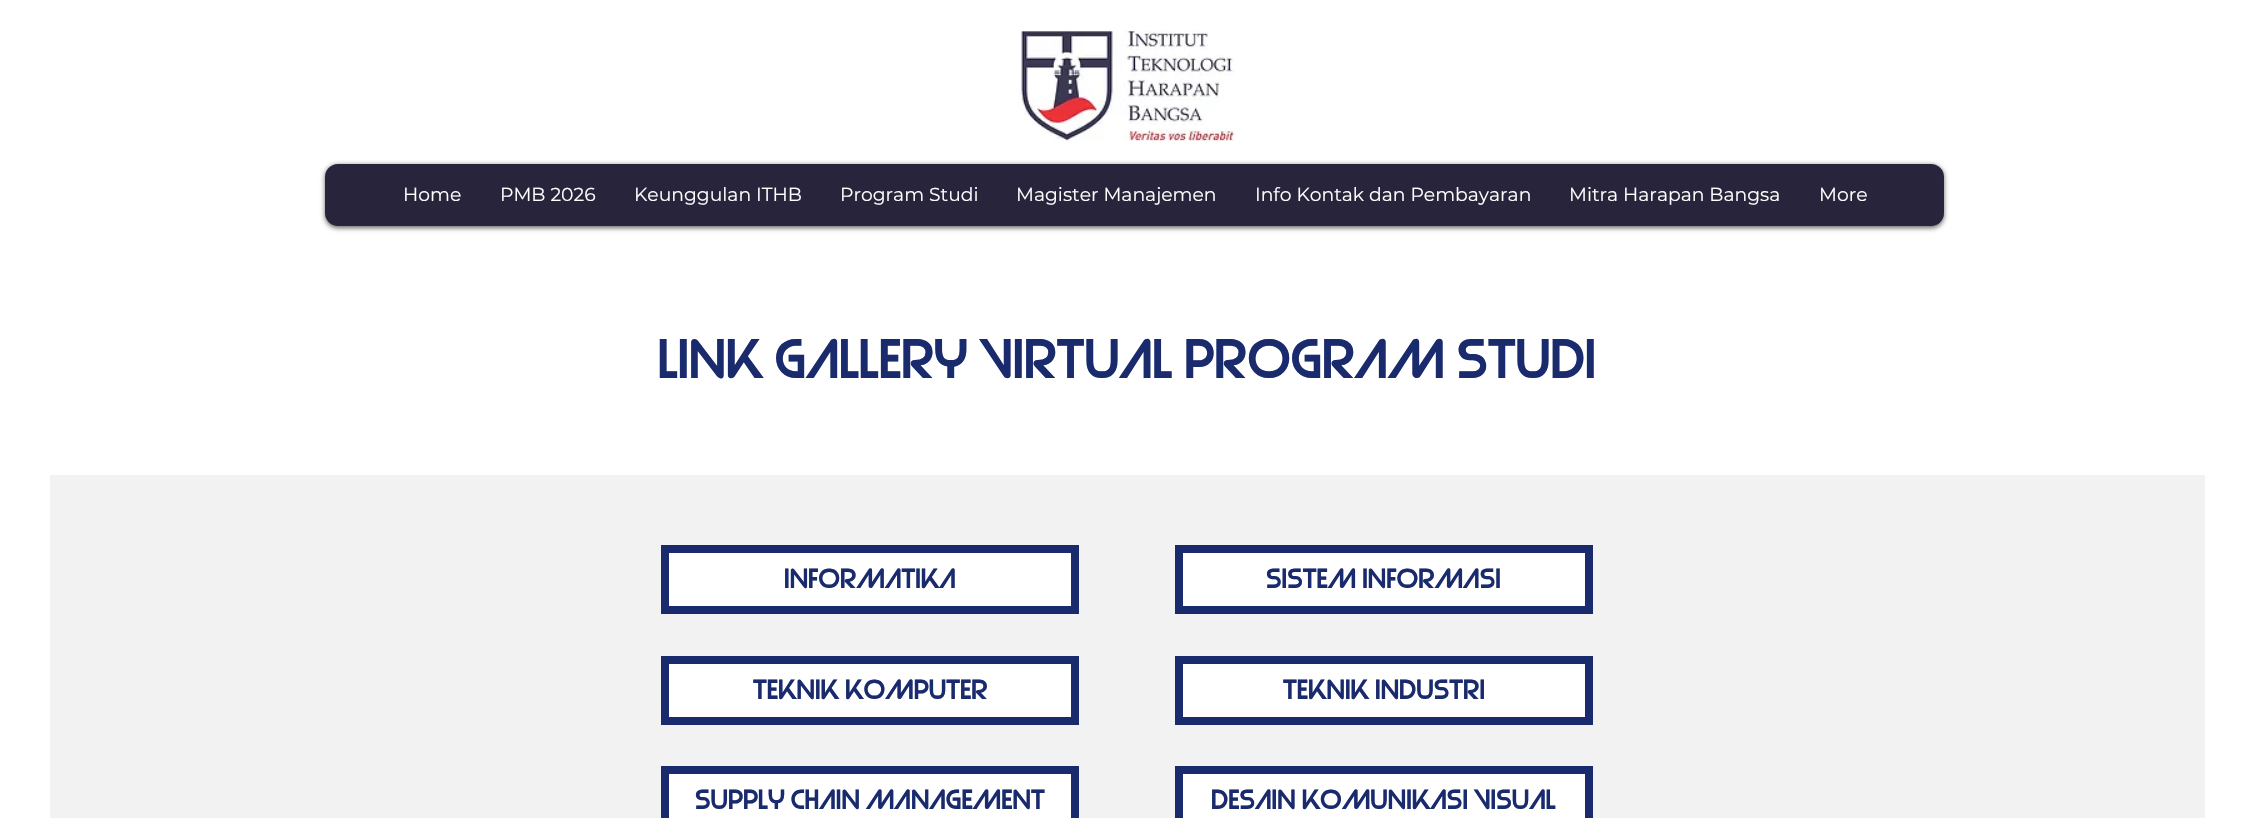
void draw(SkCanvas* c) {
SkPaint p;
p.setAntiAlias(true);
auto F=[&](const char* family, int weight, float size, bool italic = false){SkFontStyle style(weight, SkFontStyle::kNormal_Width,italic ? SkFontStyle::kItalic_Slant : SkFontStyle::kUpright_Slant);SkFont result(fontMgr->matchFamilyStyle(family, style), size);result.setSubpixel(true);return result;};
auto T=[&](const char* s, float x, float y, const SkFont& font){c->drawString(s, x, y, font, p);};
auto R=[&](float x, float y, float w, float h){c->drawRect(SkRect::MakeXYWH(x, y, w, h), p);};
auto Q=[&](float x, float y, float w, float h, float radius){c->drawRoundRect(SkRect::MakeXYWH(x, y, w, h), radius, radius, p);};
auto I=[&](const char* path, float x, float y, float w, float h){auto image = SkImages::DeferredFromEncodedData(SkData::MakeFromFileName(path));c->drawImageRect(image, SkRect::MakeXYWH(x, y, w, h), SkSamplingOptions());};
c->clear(0xffffffff);
I("1.png",1019,30,216,111);
p.setColor(0x99000000);
p.setMaskFilter(SkMaskFilter::MakeBlur(kNormal_SkBlurStyle, 2.5));
c->drawRoundRect(SkRect::MakeXYWH(325,165,1619,63),13,13,p);
p.setMaskFilter(nullptr);
p.setColor(0xff28243b);
Q(325,164,1619,62,13);
auto f1 = F("Montserrat",400,18.75);
p.setColor(0xffffffff);
T("Home",403,201,f1);
T("PMB 2026",500,201,f1);
T("Keunggulan ITHB",634,201,f1);
T("Program Studi",840,201,f1);
T("Magister Manajemen",1016,201,f1);
T("Info Kontak dan Pembayaran",1255,201,f1);
T("Mitra Harapan Bangsa",1569,201,f1);
T("More",1819,201,f1);
auto f2 = F("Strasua",400,50);
p.setColor(0xff1a2b6d);
T("Link Gallery Virtual Program Studi",658,378,f2);
p.setColor(0xfff2f2f2);
R(50,475,2155,343);
p.setColor(0xffffffff);
c->drawRect(SkRect::MakeXYWH(665,549,410,61),p);
p.setStroke(true);
p.setStrokeWidth(8);
p.setColor(0xff1a2b6d);
c->drawRect(SkRect::MakeXYWH(665,549,410,61),p);
auto f3 = F("Strasua",400,25);
p.setStroke(false);
T("Informatika",784,588,f3);
p.setColor(0xffffffff);
c->drawRect(SkRect::MakeXYWH(1179,549,410,61),p);
p.setStroke(true);
p.setColor(0xff1a2b6d);
c->drawRect(SkRect::MakeXYWH(1179,549,410,61),p);
p.setStroke(false);
T("Sistem Informasi",1266,588,f3);
p.setColor(0xffffffff);
c->drawRect(SkRect::MakeXYWH(665,660,410,61),p);
p.setStroke(true);
p.setColor(0xff1a2b6d);
c->drawRect(SkRect::MakeXYWH(665,660,410,61),p);
p.setStroke(false);
T("Teknik Komputer",753,699,f3);
p.setColor(0xffffffff);
c->drawRect(SkRect::MakeXYWH(1179,660,410,61),p);
p.setStroke(true);
p.setColor(0xff1a2b6d);
c->drawRect(SkRect::MakeXYWH(1179,660,410,61),p);
p.setStroke(false);
T("Teknik Industri",1283,699,f3);
p.setColor(0xffffffff);
c->drawRect(SkRect::MakeXYWH(665,770,410,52),p);
p.setStroke(true);
p.setColor(0xff1a2b6d);
c->drawRect(SkRect::MakeXYWH(665,770,410,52),p);
p.setStroke(false);
T("Supply Chain Management",695,809,f3);
p.setColor(0xffffffff);
c->drawRect(SkRect::MakeXYWH(1179,770,410,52),p);
p.setStroke(true);
p.setColor(0xff1a2b6d);
c->drawRect(SkRect::MakeXYWH(1179,770,410,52),p);
p.setStroke(false);
T("Desain Komunikasi visual",1211,809,f3);
}
